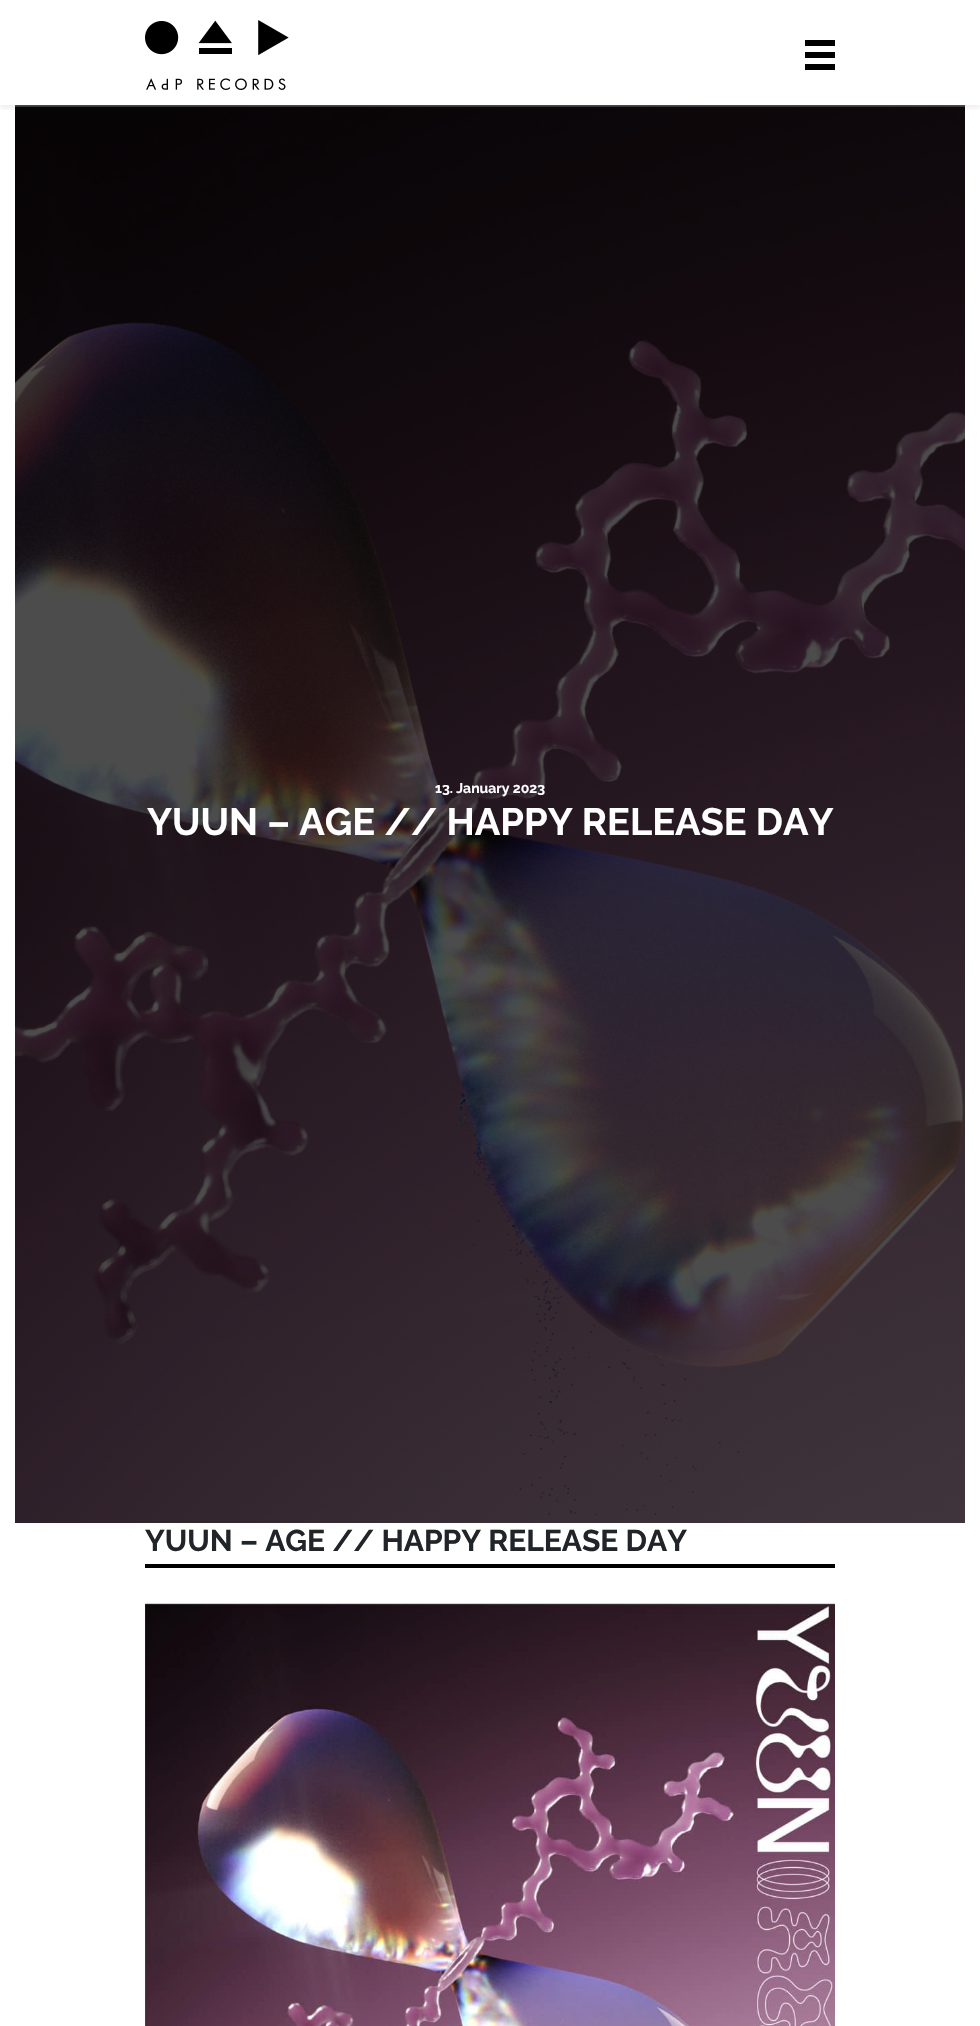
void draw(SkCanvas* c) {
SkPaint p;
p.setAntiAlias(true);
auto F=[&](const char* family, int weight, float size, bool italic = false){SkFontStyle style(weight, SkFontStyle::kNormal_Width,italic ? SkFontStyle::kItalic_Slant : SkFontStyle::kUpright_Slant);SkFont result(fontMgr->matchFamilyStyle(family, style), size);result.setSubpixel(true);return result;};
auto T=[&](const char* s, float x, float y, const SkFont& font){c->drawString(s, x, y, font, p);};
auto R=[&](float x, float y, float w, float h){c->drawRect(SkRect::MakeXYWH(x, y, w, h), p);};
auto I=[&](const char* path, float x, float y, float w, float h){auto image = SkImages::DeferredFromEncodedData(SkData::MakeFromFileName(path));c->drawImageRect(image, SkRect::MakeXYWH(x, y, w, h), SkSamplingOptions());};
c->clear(0xffffffff);
I("2.png",15,105,950,1418);
c->save();
c->clipRect(SkRect::MakeXYWH(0,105,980,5));
p.setColor(0x12000000);
p.setMaskFilter(SkMaskFilter::MakeBlur(kNormal_SkBlurStyle, 3));
c->drawRect(SkRect::MakeXYWH(0,3,980,105),p);
p.setMaskFilter(nullptr);
c->restore();
I("1.png",145,20,144,70);
p.setColor(0xff000000);
R(805,52,30,6);
R(805,40,30,6);
R(805,64,30,6);
auto f1 = F("Raleway",700,14);
p.setColor(0xffffffff);
T("13. January 2023",435,793,f1);
auto f2 = F("Raleway",700,38);
T("YUUN – AGE // HAPPY RELEASE DAY",147,835,f2);
auto f3 = F("Raleway",700,30);
p.setColor(0xff212529);
T("YUUN – AGE // HAPPY RELEASE DAY",145,1551,f3);
p.setColor(0xff000000);
R(145,1564,690,4);
I("3.png",145,1603,690,423);
}
